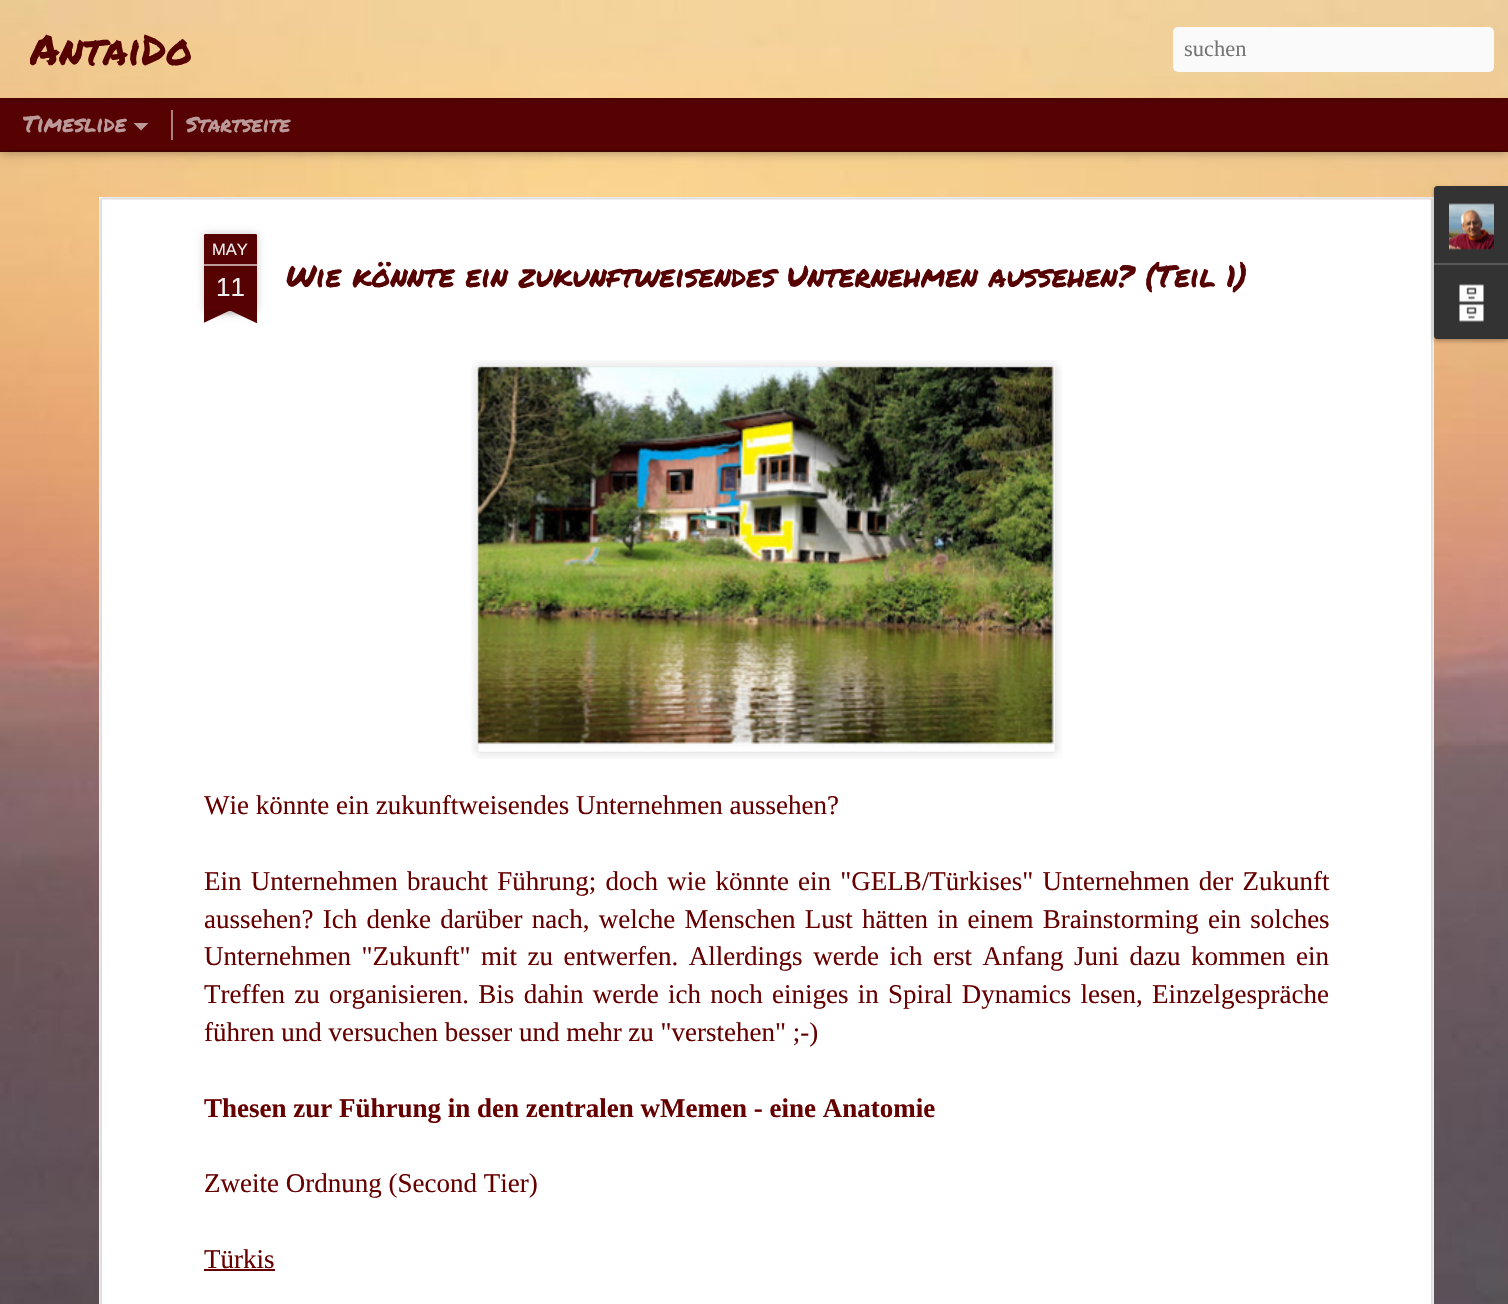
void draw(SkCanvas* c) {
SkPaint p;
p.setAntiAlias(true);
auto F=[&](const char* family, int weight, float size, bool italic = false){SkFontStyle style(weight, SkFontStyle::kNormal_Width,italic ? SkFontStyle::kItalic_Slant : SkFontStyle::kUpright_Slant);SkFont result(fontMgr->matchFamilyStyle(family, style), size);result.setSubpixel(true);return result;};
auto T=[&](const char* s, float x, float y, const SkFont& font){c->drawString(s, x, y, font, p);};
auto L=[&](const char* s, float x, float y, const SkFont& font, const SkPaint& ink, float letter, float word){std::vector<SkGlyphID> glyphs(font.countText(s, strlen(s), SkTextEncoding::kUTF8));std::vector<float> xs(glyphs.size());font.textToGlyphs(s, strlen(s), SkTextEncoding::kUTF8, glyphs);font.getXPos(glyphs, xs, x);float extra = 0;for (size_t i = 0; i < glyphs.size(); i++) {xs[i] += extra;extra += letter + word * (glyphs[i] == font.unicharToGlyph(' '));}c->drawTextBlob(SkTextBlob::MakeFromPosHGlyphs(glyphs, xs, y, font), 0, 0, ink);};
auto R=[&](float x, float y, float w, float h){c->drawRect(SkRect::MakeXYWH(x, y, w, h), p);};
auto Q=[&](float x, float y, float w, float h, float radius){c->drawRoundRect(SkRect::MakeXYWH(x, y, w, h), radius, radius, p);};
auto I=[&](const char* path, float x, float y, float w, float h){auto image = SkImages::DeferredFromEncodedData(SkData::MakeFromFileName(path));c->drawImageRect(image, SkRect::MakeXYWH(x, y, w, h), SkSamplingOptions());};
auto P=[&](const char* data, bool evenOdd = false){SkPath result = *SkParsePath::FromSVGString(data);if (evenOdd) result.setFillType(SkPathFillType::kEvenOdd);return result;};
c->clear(0xff570202);
I("2.png",0,152,1508,1152);
p.setColor(0x80000000);
p.setMaskFilter(SkMaskFilter::MakeBlur(kNormal_SkBlurStyle, 6));
c->drawRect(SkRect::MakeXYWH(0,98,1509,52),p);
p.setMaskFilter(nullptr);
p.setColor(0xff570202);
R(0,98,1508,52);
p.setColor(0xffab8181);
R(171,110,2,30);
p.setColor(0x4d000000);
p.setMaskFilter(SkMaskFilter::MakeBlur(kNormal_SkBlurStyle, 4));
c->drawRect(SkRect::MakeXYWH(0,0,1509,98),p);
p.setMaskFilter(nullptr);
I("1.png",0,0,1508,98);
c->save();
c->clipRect(SkRect::MakeXYWH(30,0,1127,98));
auto f1 = F("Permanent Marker",400,42);
p.setColor(0xff570202);
T("AntaiDo",30,65,f1);
c->restore();
p.setColor(0xfffafafa);
Q(1173,27,321,45,5);
auto f2 = F("Liberation Serif",400,22.5);
p.setColor(0xff757575);
T("suchen",1184,56,f2);
auto f3 = F("Permanent Marker",400,22.5);
p.setColor(0xffbc9a9a);
T("Timeslide",23,132,f3);
c->drawPath(P("M133.5 123h15l-7.5 7.5z"),p);
auto f4 = F("Permanent Marker",400,21);
T("Startseite",186,132,f4);
p.setColor(0xffffffff);
R(99,197,1335,1107);
I("3.png",99,197,1335,1107);
p.setColor(0x33000000);
p.setMaskFilter(SkMaskFilter::MakeBlur(kNormal_SkBlurStyle, 4));
c->drawRect(SkRect::MakeXYWH(204,266,53,45),p);
p.setMaskFilter(nullptr);
p.setColor(0xff570202);
R(204,266,53,45);
p.setColor(0x33000000);
p.setMaskFilter(SkMaskFilter::MakeBlur(kNormal_SkBlurStyle, 4));
c->drawRoundRect(SkRect::MakeXYWH(204,234,53,32),1.5,1.5,p);
p.setMaskFilter(nullptr);
p.setColor(0xff570202);
c->drawPath(P("M205.5 234h50c1 0 1.5 .5 1.5 1.5v30.5h-53v-30.5c0-1 .5-1.5 1.5-1.5z"),p);
p.setColor(0xffbc9a9a);
R(204,264,53,2);
auto f5 = F("Liberation Sans",400,16.5);
p.setColor(0xffeeeeee);
T("MAY",212,255,f5);
auto f6 = F("Liberation Sans",400,26);
T("11",216,296,f6);
c->save();
c->clipRect(SkRect::MakeXYWH(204,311,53,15));
p.setColor(0x33000000);
p.setMaskFilter(SkMaskFilter::MakeBlur(kNormal_SkBlurStyle, 4));
c->drawRect(SkRect::MakeXYWH(191,296,75,15),p);
p.setMaskFilter(nullptr);
c->restore();
c->save();
c->clipRect(SkRect::MakeXYWH(204,311,53,15));
p.setColor(0xff570202);
c->drawPath(P("M191 312l68-32l6 14l-68 32z"),p);
c->restore();
c->save();
c->clipRect(SkRect::MakeXYWH(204,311,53,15));
p.setColor(0x33000000);
p.setMaskFilter(SkMaskFilter::MakeBlur(kNormal_SkBlurStyle, 4));
c->drawRect(SkRect::MakeXYWH(195,296,75,15),p);
p.setMaskFilter(nullptr);
c->restore();
c->save();
c->clipRect(SkRect::MakeXYWH(204,311,53,15));
p.setColor(0xff570202);
c->drawPath(P("M202 280l68 32l-7 14l-68-32z"),p);
c->restore();
auto f7 = F("Permanent Marker",400,30);
T("Wie könnte ein zukunftweisendes Unternehmen aussehen? (Teil 1)",286,287,f7);
I("4.png",471,360,591,399);
I("5.png",477,366,578,386);
auto f8 = F("Liberation Serif",400,27);
p.setColor(0xff660000);
T("Wie könnte ein zukunftweisendes Unternehmen aussehen?",204,814,f8);
L("Ein Unternehmen braucht Führung; doch wie könnte ein \"GELB/Türkises\" Unternehmen der Zukunft",204,890,f8,p,0,2.5);
L("aussehen? Ich denke darüber nach, welche Menschen Lust hätten in einem Brainstorming ein solches",204,928,f8,p,0,2.5);
L("Unternehmen \"Zukunft\" mit zu entwerfen. Allerdings werde ich erst Anfang Juni dazu kommen ein",204,965,f8,p,0,3.75);
L("Treffen zu organisieren. Bis dahin werde ich noch einiges in Spiral Dynamics lesen, Einzelgespräche",204,1003,f8,p,0,2.5);
T("führen und versuchen besser und mehr zu \"verstehen\" ;-)",204,1041,f8);
auto f9 = F("Liberation Serif",700,27);
T("Thesen zur Führung in den zentralen wMemen - eine Anatomie",204,1117,f9);
T("Zweite Ordnung (Second Tier)",204,1192,f8);
T("Türkis",204,1268,f8);
R(204,1269,71,2);
p.setColor(0x4d000000);
p.setMaskFilter(SkMaskFilter::MakeBlur(kNormal_SkBlurStyle, 2));
c->drawRoundRect(SkRect::MakeXYWH(1434,188,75,153),3,3,p);
p.setMaskFilter(nullptr);
p.setColor(0xff333333);
c->drawPath(P("M1437 186h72v77h-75v-74c0-1.5 1.5-3 3-3z"),p);
I("6.png",1449,203,45,47);
c->drawPath(P("M1434 263h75v76h-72c-1.5 0-3-1.5-3-3z"),p);
p.setColor(0xff585858);
R(1434,263,74,2);
I("7.png",1459,284,25,38);
}
